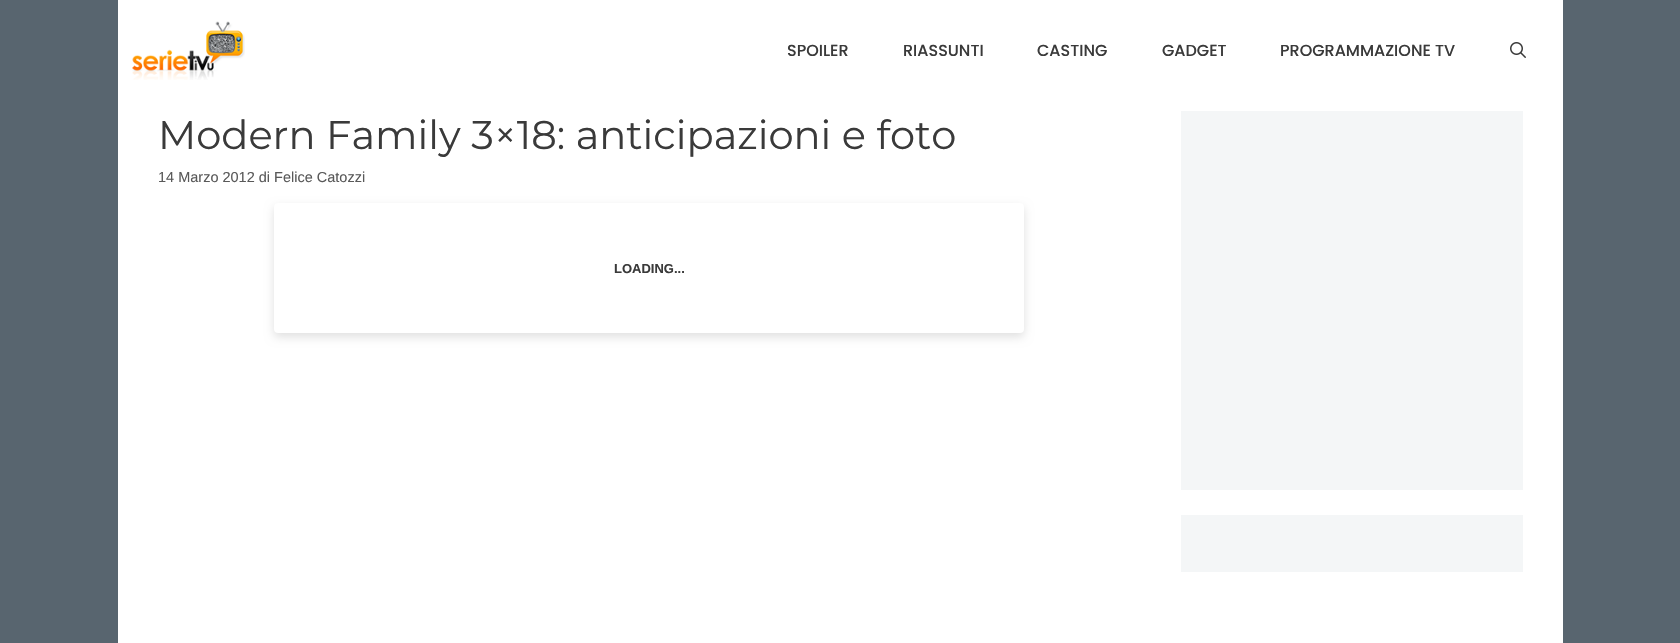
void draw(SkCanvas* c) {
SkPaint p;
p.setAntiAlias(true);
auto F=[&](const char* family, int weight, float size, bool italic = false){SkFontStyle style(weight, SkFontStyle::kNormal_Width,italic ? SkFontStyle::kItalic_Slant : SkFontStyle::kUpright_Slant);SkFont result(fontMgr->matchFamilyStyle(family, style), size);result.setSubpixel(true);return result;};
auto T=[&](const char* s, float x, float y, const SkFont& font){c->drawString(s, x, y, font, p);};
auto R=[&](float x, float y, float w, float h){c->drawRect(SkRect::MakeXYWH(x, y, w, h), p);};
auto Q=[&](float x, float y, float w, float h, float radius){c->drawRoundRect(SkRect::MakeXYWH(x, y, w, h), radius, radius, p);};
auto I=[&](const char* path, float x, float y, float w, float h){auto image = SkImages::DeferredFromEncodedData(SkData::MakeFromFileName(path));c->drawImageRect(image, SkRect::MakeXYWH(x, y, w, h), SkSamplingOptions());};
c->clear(0xff58656f);
p.setColor(0xffffffff);
R(118,0,1445,643);
I("1.png",132,21,113,59);
auto f1 = F("Poppins",500,16);
p.setColor(0xff3a3a3a);
T("SPOILER",787,56,f1);
T("RIASSUNTI",903,56,f1);
T("CASTING",1037,56,f1);
T("GADGET",1162,56,f1);
T("PROGRAMMAZIONE TV",1280,56,f1);
I("2.png",1510,42,16,16);
auto f2 = F("Montserrat",400,40);
T("Modern Family 3×18: anticipazioni e foto",158,149,f2);
auto f3 = F("Liberation Sans",400,14.5);
p.setColor(0xff595959);
T("14 Marzo 2012 di Felice Catozzi",158,182,f3);
p.setColor(0x1f000000);
p.setMaskFilter(SkMaskFilter::MakeBlur(kNormal_SkBlurStyle, 5));
c->drawRoundRect(SkRect::MakeXYWH(274,207,750,130),4,4,p);
p.setMaskFilter(nullptr);
p.setColor(0xffffffff);
Q(274,203,750,130,4);
auto f4 = F("Liberation Sans",700,13);
p.setColor(0xff3a3a3a);
T("LOADING...",614,273,f4);
p.setColor(0xfff4f6f7);
R(1181,111,342,379);
R(1181,515,342,57);
}
